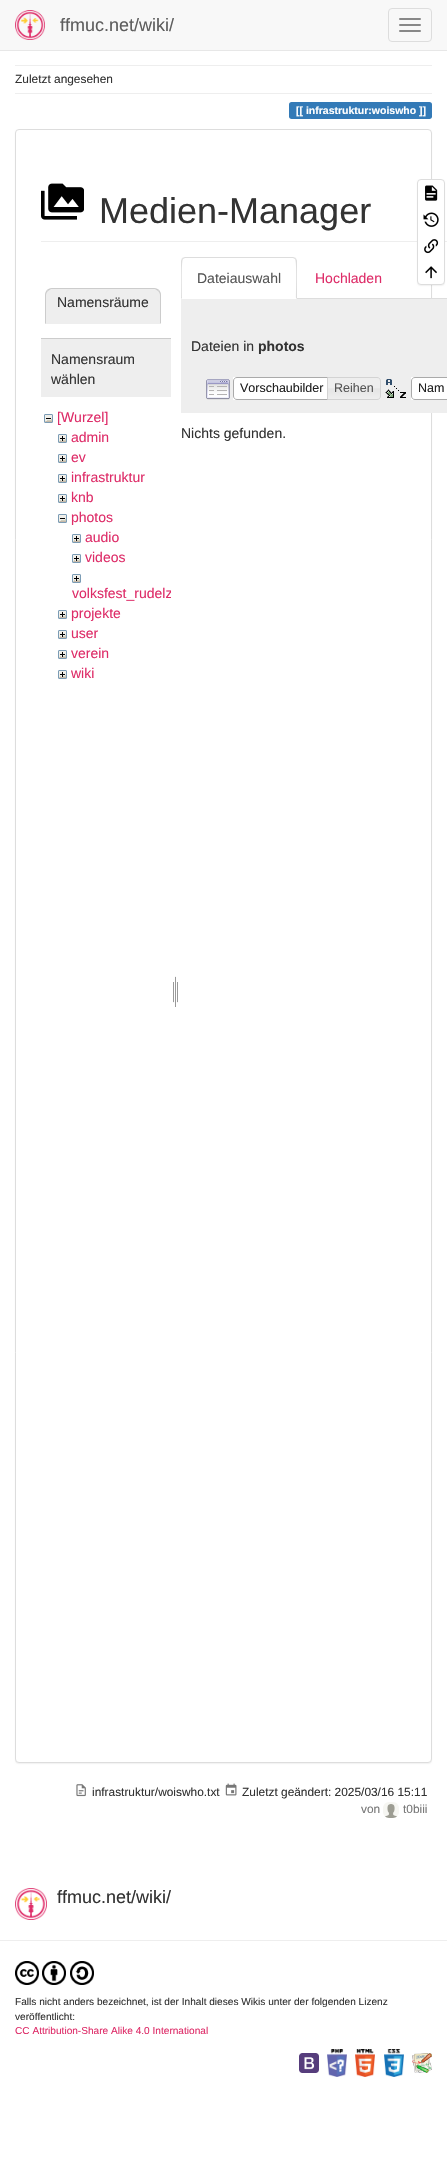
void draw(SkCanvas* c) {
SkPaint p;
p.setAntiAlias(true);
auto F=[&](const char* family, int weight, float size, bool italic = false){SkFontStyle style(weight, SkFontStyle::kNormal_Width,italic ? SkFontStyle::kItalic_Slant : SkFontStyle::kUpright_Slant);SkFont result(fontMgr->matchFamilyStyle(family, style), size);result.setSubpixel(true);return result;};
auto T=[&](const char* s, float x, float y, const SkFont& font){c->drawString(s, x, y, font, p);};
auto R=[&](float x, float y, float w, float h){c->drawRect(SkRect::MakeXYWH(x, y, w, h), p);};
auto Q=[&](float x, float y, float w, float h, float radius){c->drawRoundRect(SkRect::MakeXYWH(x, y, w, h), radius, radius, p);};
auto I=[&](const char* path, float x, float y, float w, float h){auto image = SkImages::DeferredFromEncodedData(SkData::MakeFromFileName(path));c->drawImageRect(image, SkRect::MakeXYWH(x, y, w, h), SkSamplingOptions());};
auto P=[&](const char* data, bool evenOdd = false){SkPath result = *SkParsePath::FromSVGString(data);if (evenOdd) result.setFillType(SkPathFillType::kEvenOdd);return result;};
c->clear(0xffffffff);
p.setColor(0xfff8f8f8);
R(0,0,447,50);
p.setColor(0xffe7e7e7);
R(0,50,447,1);
I("1.png",15,10,30,30);
auto f1 = F("Liberation Sans",400,18);
p.setColor(0xff5e5e5e);
T("ffmuc.net/wiki/",60,31,f1);
p.setStroke(true);
p.setStrokeWidth(1);
p.setColor(0xffdddddd);
c->drawRoundRect(SkRect::MakeXYWH(388.5,8.5,43,33),3.5,3.5,p);
p.setStroke(false);
p.setColor(0xff888888);
Q(399,18,22,2,1);
Q(399,24,22,2,1);
Q(399,30,22,2,1);
p.setColor(0xffeeeeee);
R(15,65,417,1);
auto f2 = F("Liberation Sans",400,11.9);
p.setColor(0xff333333);
T("Zuletzt angesehen",15,83,f2);
p.setColor(0xffeeeeee);
R(15,93,417,1);
p.setColor(0xff337ab7);
c->drawPath(P("M291.5 102h14.5v17h-14.5c-1.5 0-2.5-1-2.5-2.5v-12c0-1.5 1-2.5 2.5-2.5z"),p);
R(306,102,110,17);
c->drawPath(P("M416 102h13.5c1.5 0 2.5 1 2.5 2.5v12c0 1.5-1 2.5-2.5 2.5h-13.5z"),p);
auto f3 = F("Liberation Sans",700,10.5);
p.setColor(0xffffffff);
T("[[ infrastruktur:woiswho ]]",296,114,f3);
p.setColor(0x0d000000);
p.setMaskFilter(SkMaskFilter::MakeBlur(kNormal_SkBlurStyle, .5));
c->drawRoundRect(SkRect::MakeXYWH(15,130,417,1634),4,4,p);
p.setMaskFilter(nullptr);
p.setColor(0xffffffff);
c->drawRoundRect(SkRect::MakeXYWH(15.5,129.5,416,1633),3.5,3.5,p);
p.setStroke(true);
p.setColor(0xffdddddd);
c->drawRoundRect(SkRect::MakeXYWH(15.5,129.5,416,1633),3.5,3.5,p);
p.setStroke(false);
p.setColor(0xffeeeeee);
R(41,241,406,1);
p.setColor(0x0d000000);
p.setMaskFilter(SkMaskFilter::MakeBlur(kNormal_SkBlurStyle, .5));
c->drawRoundRect(SkRect::MakeXYWH(417,180,28,106),4,4,p);
p.setMaskFilter(nullptr);
p.setColor(0xffffffff);
c->drawRoundRect(SkRect::MakeXYWH(417.5,179.5,27,105),3.5,3.5,p);
p.setStroke(true);
p.setColor(0xffdddddd);
c->drawRoundRect(SkRect::MakeXYWH(417.5,179.5,27,105),3.5,3.5,p);
I("2.png",425,185,13,16);
I("3.png",423,212,16,15);
I("4.png",424,239,15,15);
I("5.png",425,266,12,13);
I("6.png",41,183,43,37);
auto f4 = F("Liberation Sans",400,36);
p.setStroke(false);
p.setColor(0xff333333);
T("Medien-Manager",99,223,f4);
p.setColor(0xffeeeeee);
c->drawPath(P("M52 288h102c4 0 7 3 7 7v29h-116v-29c0-4 3-7 7-7z"),p);
p.setColor(0xffcccccc);
c->drawPath(P("M52 288c-2 0-4 1-5 2l1 1l3-2h104l3 2l1-1c-1-1-3-2-5-2z"),p);
c->drawPath(P("M161 324v-29c0-2-1-4-2-5l-1 1c1 1 2 2.5 2 4v28z"),p);
p.setColor(0xffeeeeee);
c->drawPath(P("M161 324l-1-1h-114l-1 1z"),p);
p.setColor(0xffcccccc);
c->drawPath(P("M45 324l1-1v-28c0-1.5 1-3 2-4l-1-1c-1 1-2 3-2 5z"),p);
auto f5 = F("Liberation Sans",400,14);
p.setColor(0xff333333);
T("Namensräume",57,307,f5);
p.setColor(0xffeeeeee);
R(41,339,130,58);
p.setColor(0xffcccccc);
R(41,338,130,1);
p.setColor(0xff333333);
T("Namensraum",51,364,f5);
T("wählen",51,384,f5);
I("7.png",44,414,9,9);
p.setColor(0xffde2c68);
T("[Wurzel]",57,422,f5);
I("8.png",58,434,9,9);
T("admin",71,442,f5);
I("8.png",58,454,9,9);
T("ev",71,462,f5);
I("8.png",58,474,9,9);
T("infrastruktur",71,482,f5);
I("8.png",58,494,9,9);
T("knb",71,502,f5);
I("7.png",58,514,9,9);
T("photos",71,522,f5);
I("8.png",72,534,9,9);
T("audio",85,542,f5);
I("8.png",72,554,9,9);
T("videos",85,562,f5);
I("8.png",72,574,9,9);
c->save();
c->clipRect(SkRect::MakeXYWH(72,567,99,36));
T("volksfest_rudelz",72,598,f5);
c->restore();
I("8.png",58,610,9,9);
T("projekte",71,618,f5);
I("8.png",58,630,9,9);
T("user",71,638,f5);
I("8.png",58,650,9,9);
T("verein",71,658,f5);
I("8.png",58,670,9,9);
T("wiki",71,678,f5);
I("9.png",173,976,5,31);
p.setColor(0xffdddddd);
R(297,298,150,1);
c->drawPath(P("M185 257l-3 1l1 1l2-1h108l2 1l1-1l-3-1z"),p);
c->drawPath(P("M297 299v-38c0-1-1-2-1-3l-1 1c2 2 1 34 1 39z"),p);
c->drawPath(P("M181 299l1-1c0-5-1-37 1-39l-1-1l-1 3z"),p);
p.setColor(0xff555555);
T("Dateiauswahl",197,283,f5);
p.setColor(0xffde2c68);
T("Hochladen",315,283,f5);
p.setColor(0xffeeeeee);
R(181,299,266,114);
p.setColor(0xff333333);
T("Dateien in",191,351,f5);
auto f6 = F("Liberation Sans",700,14);
T("photos",258,351,f6);
I("10.png",206,379,24,21);
p.setColor(0xffffffff);
R(233,377,94,23);
p.setStroke(true);
p.setColor(0xffaaaaaa);
c->drawPath(P("M237 377.5h94.5v22h-94.5c-2 0-3.5-1.5-3.5-3.5v-15c0-2 1.5-3.5 3.5-3.5z"),p);
auto f7 = F("Liberation Sans",400,12.5);
p.setStroke(false);
p.setColor(0xff212121);
T("Vorschaubilder",240,392,f7);
I("11.png",328,377,53,23);
p.setStroke(true);
p.setColor(0xffd3d3d3);
c->drawPath(P("M327.5 377.5h49.5c2 0 3.5 1.5 3.5 3.5v15c0 2-1.5 3.5-3.5 3.5h-49.5z"),p);
p.setStroke(false);
p.setColor(0xff555555);
T("Reihen",334,392,f7);
I("12.png",385,379,21,19);
p.setColor(0xffffffff);
R(411,377,36,23);
p.setStroke(true);
p.setColor(0xffaaaaaa);
c->drawPath(P("M415 377.5h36.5v22h-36.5c-2 0-3.5-1.5-3.5-3.5v-15c0-2 1.5-3.5 3.5-3.5z"),p);
p.setStroke(false);
p.setColor(0xff212121);
T("Nam",418,392,f7);
p.setColor(0xff333333);
T("Nichts gefunden.",181,438,f5);
I("13.png",76,1784,10,13);
T("infrastruktur/woiswho.txt",92,1796,f2);
I("14.png",225,1783,12,13);
T("Zuletzt geändert: 2025/03/16 15:11",242,1796,f2);
p.setColor(0xff777777);
T("von",361,1813,f2);
I("15.png",383,1802,16,16);
T("t0biii",403,1813,f2);
I("16.png",15,1888,32,32);
p.setColor(0xff333333);
T("ffmuc.net/wiki/",57,1903,f1);
p.setColor(0xffeeeeee);
R(0,1940,447,1);
I("17.png",15,1961,24,24);
I("18.png",42,1961,24,24);
I("19.png",70,1961,24,24);
auto f8 = F("Liberation Sans",400,10.1);
p.setColor(0xff333333);
T("Falls nicht anders bezeichnet, ist der Inhalt dieses Wikis unter der folgenden Lizenz",15,2005,f8);
T("veröffentlicht:",15,2020,f8);
p.setColor(0xffde2c68);
T("CC Attribution-Share Alike 4.0 International",15,2034,f8);
I("20.png",299,2053,20,20);
I("21.png",327,2049,20,28);
I("22.png",355,2049,20,28);
I("23.png",384,2049,20,28);
I("24.png",412,2053,20,20);
}
